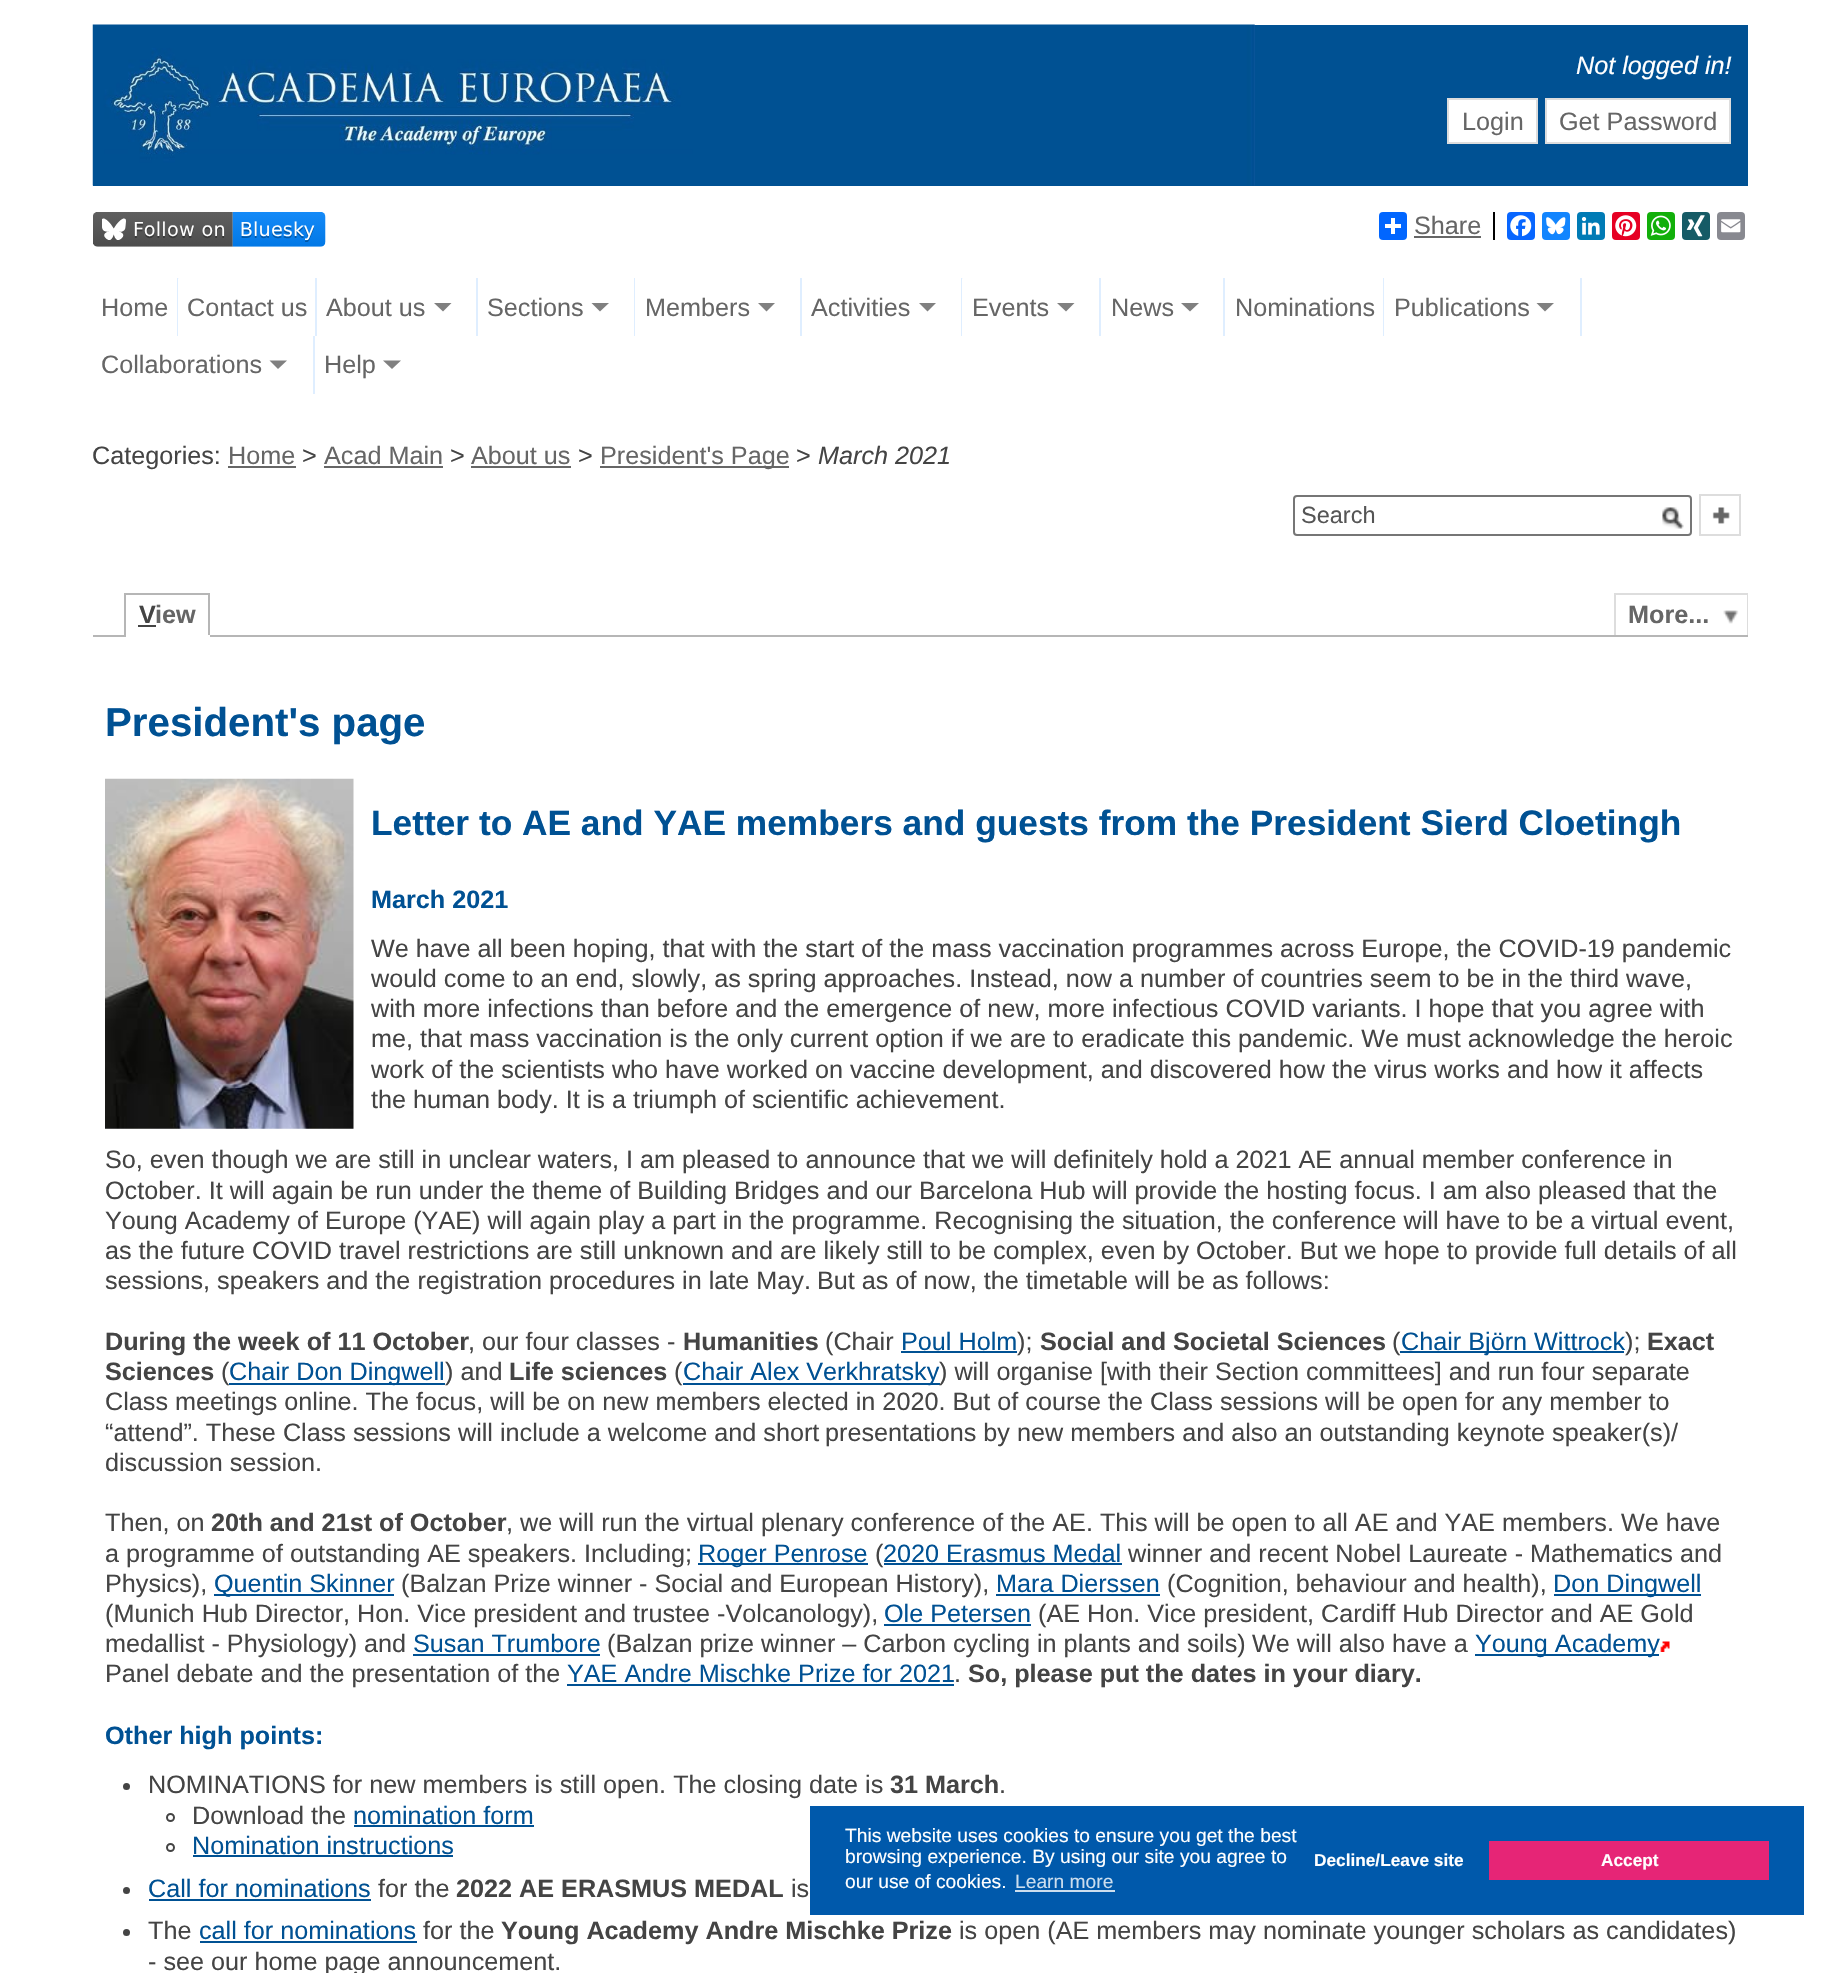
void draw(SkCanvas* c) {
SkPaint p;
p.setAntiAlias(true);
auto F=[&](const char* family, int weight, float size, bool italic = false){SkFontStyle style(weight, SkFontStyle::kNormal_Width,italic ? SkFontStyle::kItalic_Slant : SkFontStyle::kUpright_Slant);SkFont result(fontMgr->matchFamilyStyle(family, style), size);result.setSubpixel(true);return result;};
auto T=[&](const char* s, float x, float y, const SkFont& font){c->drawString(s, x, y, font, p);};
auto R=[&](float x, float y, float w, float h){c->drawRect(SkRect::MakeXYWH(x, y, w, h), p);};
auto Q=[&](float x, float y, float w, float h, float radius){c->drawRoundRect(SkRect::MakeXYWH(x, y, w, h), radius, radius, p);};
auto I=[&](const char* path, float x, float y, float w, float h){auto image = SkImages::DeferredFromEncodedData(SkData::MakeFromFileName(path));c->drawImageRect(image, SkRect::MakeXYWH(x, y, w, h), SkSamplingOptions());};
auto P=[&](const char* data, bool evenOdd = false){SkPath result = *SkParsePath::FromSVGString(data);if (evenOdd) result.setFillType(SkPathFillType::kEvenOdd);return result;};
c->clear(0xffffffff);
p.setColor(0xff005193);
R(93,25,1655,161);
I("1.png",92,24,1163,162);
auto f1 = F("Liberation Sans",400,25.2,true);
p.setColor(0xffffffff);
T("Not logged in!",1576,74,f1);
c->drawRect(SkRect::MakeXYWH(1448,99,89,44),p);
p.setStroke(true);
p.setStrokeWidth(2);
p.setColor(0xffdddddd);
c->drawRect(SkRect::MakeXYWH(1448,99,89,44),p);
auto f2 = F("Liberation Sans",400,25.2);
p.setStroke(false);
p.setColor(0xff666666);
T("Login",1462,130,f2);
p.setColor(0xffffffff);
c->drawRect(SkRect::MakeXYWH(1546,99,184,44),p);
p.setStroke(true);
p.setColor(0xffdddddd);
c->drawRect(SkRect::MakeXYWH(1546,99,184,44),p);
p.setStroke(false);
p.setColor(0xff666666);
T("Get Password",1559,130,f2);
I("2.png",93,212,233,35);
p.setColor(0xff0166ff);
Q(1379,212,28,28,4);
p.setColor(0xffffffff);
R(1391,218,4,16);
R(1385,224,16,4);
p.setColor(0xff666666);
T("Share",1414,234,f2);
R(1414,236,67,2);
p.setColor(0xff000000);
R(1493,212,2,28);
p.setColor(0xff0866ff);
Q(1507,212,28,28,4);
I("3.png",1510,215,22,22);
p.setColor(0xff1285fe);
Q(1542,212,28,28,4);
I("4.png",1546,217,20,18);
p.setColor(0xff007bb5);
Q(1577,212,28,28,4);
I("5.png",1581,217,19,18);
p.setColor(0xffe60023);
Q(1612,212,28,28,4);
I("6.png",1615,215,22,22);
p.setColor(0xff12af0a);
Q(1647,212,28,28,4);
I("7.png",1650,215,21,21);
p.setColor(0xff165b66);
Q(1682,212,28,28,4);
I("8.png",1686,215,19,22);
p.setColor(0xff888990);
Q(1717,212,28,28,4);
I("9.png",1721,219,20,14);
p.setColor(0xffdfeeff);
R(177,278,2,58);
p.setColor(0xff666666);
T("Home",101,316,f2);
p.setColor(0xffdfeeff);
R(315,278,2,58);
p.setColor(0xffffffff);
c->drawPath(P("M178 278h137v2h-135z"),p);
c->drawPath(P("M178 336v-58l2 2v56z"),p);
p.setColor(0xff666666);
T("Contact us",187,316,f2);
p.setColor(0xffdfeeff);
R(476,278,2,58);
p.setColor(0xff666666);
T("About us",326,316,f2);
p.setColor(0xff808080);
c->drawPath(P("M434 303h17.5l-8.5 8.5z"),p);
p.setColor(0xffdfeeff);
R(634,278,1,58);
p.setColor(0xff666666);
T("Sections",487,316,f2);
p.setColor(0xff808080);
c->drawPath(P("M591.5 303h17.5l-9 8.5z"),p);
p.setColor(0xffdfeeff);
R(800,278,2,58);
p.setColor(0xff666666);
T("Members",645,316,f2);
p.setColor(0xff808080);
c->drawPath(P("M758 303h17l-8.5 8.5z"),p);
p.setColor(0xffdfeeff);
R(961,278,2,58);
p.setColor(0xff666666);
T("Activities",811,316,f2);
p.setColor(0xff808080);
c->drawPath(P("M919 303h17l-8.5 8.5z"),p);
p.setColor(0xffdfeeff);
R(1099,278,2,58);
p.setColor(0xffffffff);
c->drawPath(P("M962 278h137v2h-135z"),p);
c->drawPath(P("M962 336v-58l2 2v56z"),p);
p.setColor(0xff666666);
T("Events",972,316,f2);
p.setColor(0xff808080);
c->drawPath(P("M1057 303h17.5l-8.5 8.5z"),p);
p.setColor(0xffdfeeff);
R(1223,278,2,58);
p.setColor(0xff666666);
T("News",1111,316,f2);
p.setColor(0xff808080);
c->drawPath(P("M1181 303h18l-9 8.5z"),p);
p.setColor(0xffdfeeff);
R(1383,278,1,58);
p.setColor(0xff666666);
T("Nominations",1235,316,f2);
p.setColor(0xffdfeeff);
R(1580,278,2,58);
p.setColor(0xff666666);
T("Publications",1394,316,f2);
p.setColor(0xff808080);
c->drawPath(P("M1536.5 303h17.5l-9 8.5z"),p);
p.setColor(0xffdfeeff);
R(313,336,2,58);
p.setColor(0xff666666);
T("Collaborations",101,373,f2);
p.setColor(0xff808080);
c->drawPath(P("M269.5 360.5h17.5l-9 8.5z"),p);
p.setColor(0xff666666);
T("Help",324,373,f2);
p.setColor(0xff808080);
c->drawPath(P("M383 360.5h18l-9 8.5z"),p);
p.setColor(0xff444444);
T("Categories:",92,464,f2);
p.setColor(0xff666666);
T("Home",228,464,f2);
R(228,466,68,2);
p.setColor(0xff444444);
T(">",302,464,f2);
p.setColor(0xff666666);
T("Acad Main",324,464,f2);
R(324,466,119,2);
p.setColor(0xff444444);
T(">",450,464,f2);
p.setColor(0xff666666);
T("About us",471,464,f2);
R(471,466,100,2);
p.setColor(0xff444444);
T(">",578,464,f2);
p.setColor(0xff666666);
R(600,466,189,2);
T("President's Page",600,464,f2);
p.setColor(0xff444444);
T(">",796,464,f2);
T("March 2021",818,464,f1);
p.setStroke(true);
p.setColor(0xff767676);
c->drawRoundRect(SkRect::MakeXYWH(1294,496,397,39),3,3,p);
auto f3 = F("Liberation Sans",400,23.5);
p.setStroke(false);
p.setColor(0xff555555);
T("Search",1301,523,f3);
I("10.png",1662,507,22,22);
p.setStroke(true);
p.setColor(0xffdddddd);
c->drawRect(SkRect::MakeXYWH(1700,495,40,40),p);
I("11.png",1712,507,18,17);
p.setStroke(false);
p.setColor(0xffb6b6b6);
R(124,593,86,2);
R(93,635,1655,2);
R(208,593,2,44);
p.setColor(0xffffffff);
R(124,635,86,2);
p.setColor(0xffb6b6b6);
R(124,593,2,44);
auto f4 = F("Liberation Sans",700,25.2);
p.setColor(0xff444444);
T("V",139,623,f4);
R(138,625,18,2);
p.setColor(0xff666666);
T("iew",155,623,f4);
I("12.png",1723,610,16,14);
p.setColor(0xffdddddd);
R(1614,593,134,2);
R(1747,593,1,42);
R(1614,593,2,42);
p.setColor(0xff666666);
T("More...",1628,623,f4);
auto f5 = F("Liberation Sans",700,40.25);
p.setColor(0xff005193);
T("President's page",105,736,f5);
I("13.png",105,778,249,351);
auto f6 = F("Liberation Sans",700,35.3);
T("Letter to AE and YAE members and guests from the President Sierd Cloetingh",371,835,f6);
T("March 2021",371,908,f4);
p.setColor(0xff444444);
T("We have all been hoping, that with the start of the mass vaccination programmes across Europe, the COVID-19 pandemic",371,957,f2);
T("would come to an end, slowly, as spring approaches. Instead, now a number of countries seem to be in the third wave,",371,987,f2);
T("with more infections than before and the emergence of new, more infectious COVID variants. I hope that you agree with",371,1017,f2);
T("me, that mass vaccination is the only current option if we are to eradicate this pandemic. We must acknowledge the heroic",371,1047,f2);
T("work of the scientists who have worked on vaccine development, and discovered how the virus works and how it affects",371,1078,f2);
T("the human body. It is a triumph of scientific achievement.",371,1108,f2);
T("So, even though we are still in unclear waters, I am pleased to announce that we will definitely hold a 2021 AE annual member conference in",105,1168,f2);
T("October. It will again be run under the theme of Building Bridges and our Barcelona Hub will provide the hosting focus. I am also pleased that the",105,1199,f2);
T("Young Academy of Europe (YAE) will again play a part in the programme. Recognising the situation, the conference will have to be a virtual event,",105,1229,f2);
T("as the future COVID travel restrictions are still unknown and are likely still to be complex, even by October. But we hope to provide full details of all",105,1259,f2);
T("sessions, speakers and the registration procedures in late May.",105,1289,f2);
T("But as of now, the timetable will be as follows:",817,1289,f2);
T("During the week of 11 October",105,1350,f4);
T(", our four classes -",468,1350,f2);
T("Humanities",683,1350,f4);
T("(Chair",825,1350,f2);
p.setColor(0xff005193);
T("Poul Holm",901,1350,f2);
R(901,1351,116,2);
p.setColor(0xff444444);
T(");",1017,1350,f2);
T("Social and Societal Sciences",1040,1350,f4);
T("(",1392,1350,f2);
p.setColor(0xff005193);
R(1400,1351,224,2);
T("Chair Björn Wittrock",1401,1350,f2);
p.setColor(0xff444444);
T(");",1625,1350,f2);
T("Exact",1647,1350,f4);
T("Sciences",105,1380,f4);
T("(",221,1380,f2);
p.setColor(0xff005193);
R(229,1383,216,2);
T("Chair Don Dingwell",229,1380,f2);
p.setColor(0xff444444);
T(") and",445,1380,f2);
T("Life sciences",509,1380,f4);
T("(",674,1380,f2);
p.setColor(0xff005193);
R(683,1383,257,2);
T("Chair Alex Verkhratsky",683,1380,f2);
p.setColor(0xff444444);
T(") will organise [with their Section committees] and run four separate",939,1380,f2);
T("Class meetings online. The focus, will be on new members elected in 2020. But of course the Class sessions will be open for any member to",105,1410,f2);
T("“attend”. These Class sessions will include a welcome and short",105,1441,f2);
T("presentations by new members and also an outstanding keynote speaker(s)/",825,1441,f2);
T("discussion session.",105,1471,f2);
T("Then, on",105,1531,f2);
T("20th and 21st of October",211,1531,f4);
T(", we will run the virtual plenary conference of the AE. This will be open to all AE and YAE members. We have",506,1531,f2);
T("a programme of outstanding AE speakers. Including;",105,1562,f2);
p.setColor(0xff005193);
R(698,1563,170,2);
T("Roger Penrose",698,1562,f2);
p.setColor(0xff444444);
T("(",875,1562,f2);
p.setColor(0xff005193);
T("2020 Erasmus Medal",883,1562,f2);
R(884,1563,238,2);
p.setColor(0xff444444);
T("winner and recent Nobel Laureate - Mathematics and",1128,1562,f2);
T("Physics),",105,1592,f2);
p.setColor(0xff005193);
R(214,1594,180,2);
T("Quentin Skinner",214,1592,f2);
p.setColor(0xff444444);
T("(Balzan Prize winner - Social and European History),",401,1592,f2);
p.setColor(0xff005193);
T("Mara Dierssen",996,1592,f2);
R(996,1594,164,2);
p.setColor(0xff444444);
T("(Cognition, behaviour and health),",1167,1592,f2);
p.setColor(0xff005193);
R(1554,1594,147,2);
T("Don Dingwell",1553,1592,f2);
p.setColor(0xff444444);
T("(Munich Hub Director, Hon. Vice president and trustee -Volcanology),",105,1622,f2);
p.setColor(0xff005193);
T("Ole Petersen",884,1622,f2);
R(884,1624,147,2);
p.setColor(0xff444444);
T("(AE Hon. Vice president, Cardiff Hub Director and AE Gold",1038,1622,f2);
T("medallist - Physiology) and",105,1652,f2);
p.setColor(0xff005193);
T("Susan Trumbore",413,1652,f2);
R(413,1654,187,2);
p.setColor(0xff444444);
T("(Balzan prize winner – Carbon cycling in plants and soils)",607,1652,f2);
T("We will also have a",1252,1652,f2);
p.setColor(0xff005193);
R(1475,1654,184,2);
T("Young Academy",1475,1652,f2);
I("14.png",1660,1641,10,11);
p.setColor(0xff444444);
T("Panel debate and the presentation of the",105,1682,f2);
p.setColor(0xff005193);
T("YAE Andre Mischke Prize for 2021",567,1682,f2);
R(567,1684,387,2);
p.setColor(0xff444444);
T(".",954,1682,f2);
T("So, please put the dates in your diary.",968,1682,f4);
p.setColor(0xff005193);
T("Other high points:",105,1744,f4);
p.setColor(0xff444444);
c->drawCircle(126.5,1786.5,3.5,p);
T("NOMINATIONS for new members is still open. The closing date is",148,1793,f2);
T("31 March",890,1793,f4);
T(".",999,1793,f2);
p.setStroke(true);
c->drawCircle(170.5,1817.5,3.5,p);
p.setStroke(false);
T("Download the",192,1824,f2);
p.setColor(0xff005193);
T("nomination form",353,1824,f2);
R(354,1825,180,2);
p.setStroke(true);
p.setColor(0xff444444);
c->drawCircle(170.5,1847.5,3.5,p);
p.setStroke(false);
p.setColor(0xff005193);
T("Nomination instructions",192,1854,f2);
R(193,1855,260,2);
p.setColor(0xff444444);
c->drawCircle(126.5,1890.5,3.5,p);
p.setColor(0xff005193);
T("Call for nominations",148,1897,f2);
R(149,1899,222,2);
p.setColor(0xff444444);
T("for the",378,1897,f2);
T("2022 AE ERASMUS MEDAL",456,1897,f4);
T("is",791,1897,f2);
c->drawCircle(126.5,1932.5,3.5,p);
T("The",148,1939,f2);
p.setColor(0xff005193);
T("call for nominations",199,1939,f2);
R(200,1941,217,2);
p.setColor(0xff444444);
T("for the",423,1939,f2);
T("Young Academy Andre Mischke Prize",501,1939,f4);
T("is open (AE members may nominate younger scholars as candidates)",959,1939,f2);
T("- see our home page announcement.",148,1970,f2);
p.setColor(0xff0059ab);
R(810,1806,994,109);
auto f7 = F("Liberation Sans",400,19.25);
p.setColor(0xffffffff);
T("This website uses cookies to ensure you get the best",845,1842,f7);
T("browsing experience. By using our site you agree to",845,1863,f7);
T("our use of cookies.",845,1888,f7);
p.setColor(0xffccdeee);
T("Learn more",1015,1888,f7);
R(1015,1890,100,2);
auto f8 = F("Liberation Sans",700,17.25);
p.setColor(0xffffffff);
T("Decline/Leave site",1314,1866,f8);
p.setColor(0xffe62576);
R(1489,1841,280,39);
p.setColor(0xffffffff);
T("Accept",1601,1866,f8);
}
